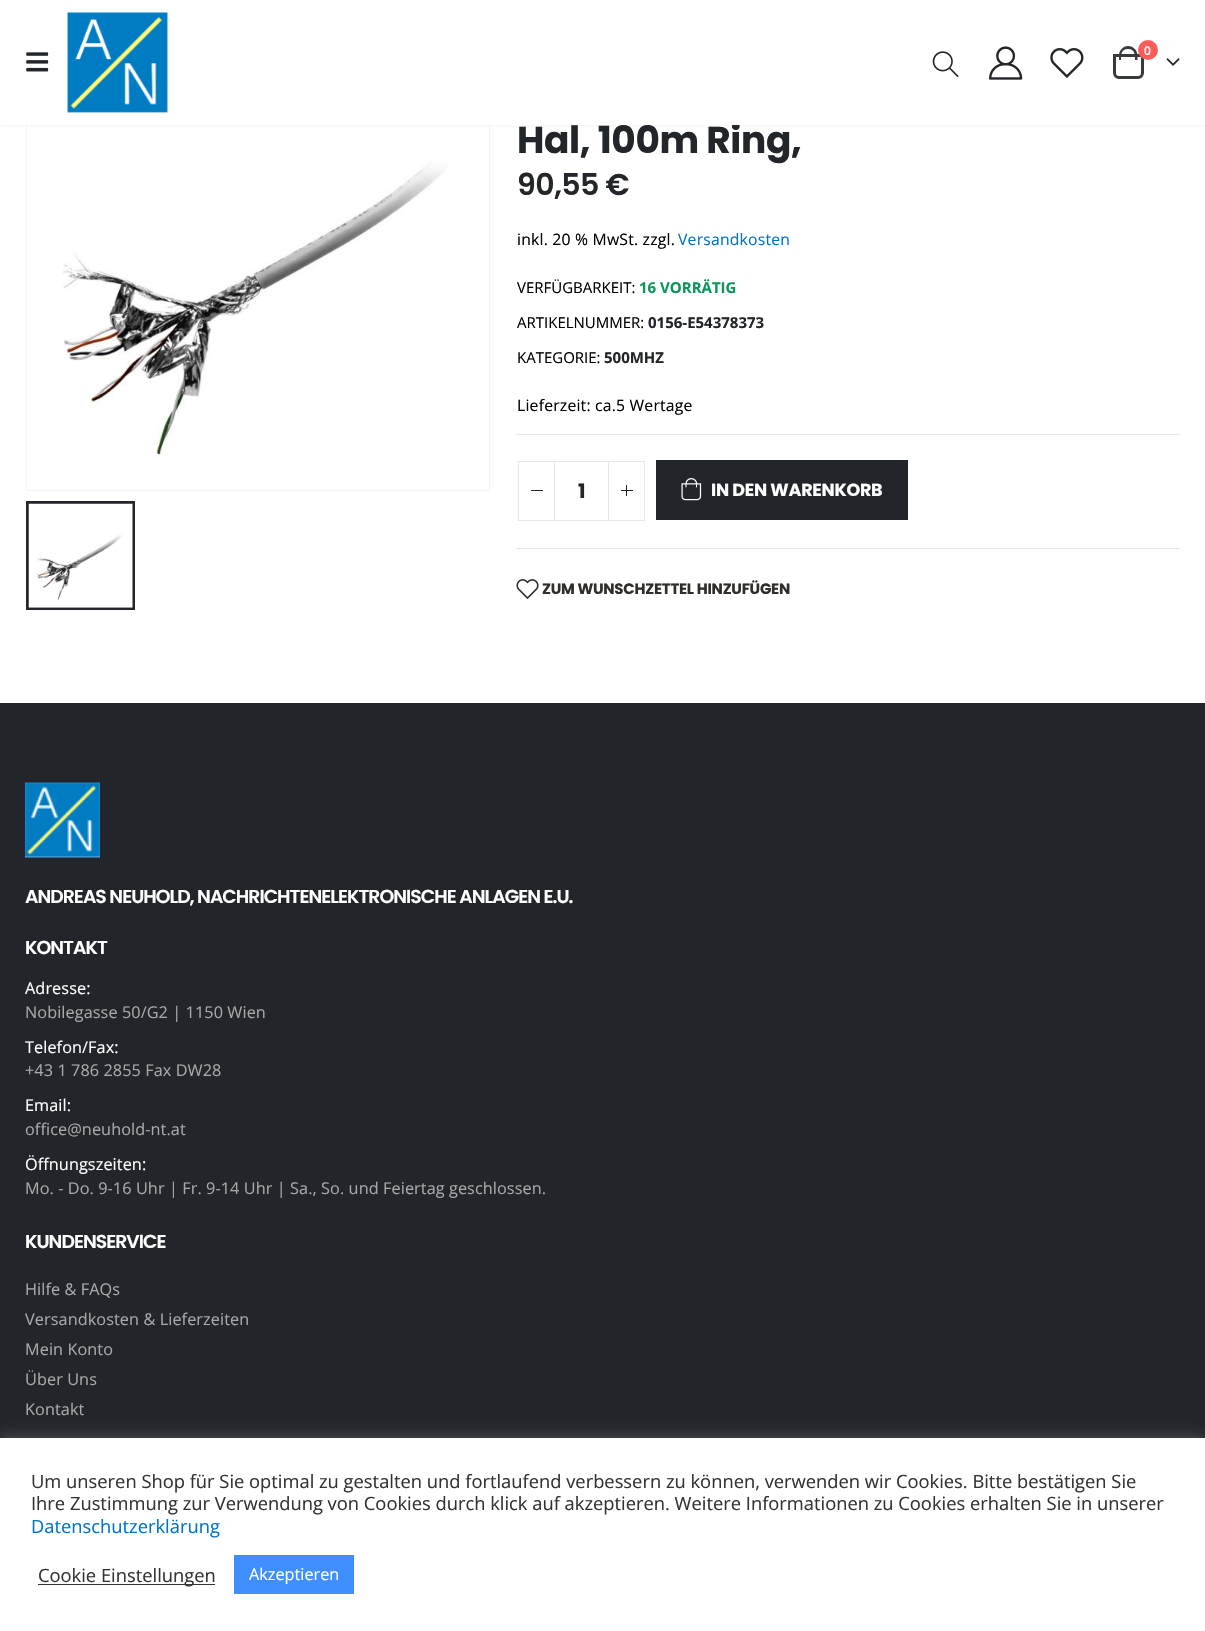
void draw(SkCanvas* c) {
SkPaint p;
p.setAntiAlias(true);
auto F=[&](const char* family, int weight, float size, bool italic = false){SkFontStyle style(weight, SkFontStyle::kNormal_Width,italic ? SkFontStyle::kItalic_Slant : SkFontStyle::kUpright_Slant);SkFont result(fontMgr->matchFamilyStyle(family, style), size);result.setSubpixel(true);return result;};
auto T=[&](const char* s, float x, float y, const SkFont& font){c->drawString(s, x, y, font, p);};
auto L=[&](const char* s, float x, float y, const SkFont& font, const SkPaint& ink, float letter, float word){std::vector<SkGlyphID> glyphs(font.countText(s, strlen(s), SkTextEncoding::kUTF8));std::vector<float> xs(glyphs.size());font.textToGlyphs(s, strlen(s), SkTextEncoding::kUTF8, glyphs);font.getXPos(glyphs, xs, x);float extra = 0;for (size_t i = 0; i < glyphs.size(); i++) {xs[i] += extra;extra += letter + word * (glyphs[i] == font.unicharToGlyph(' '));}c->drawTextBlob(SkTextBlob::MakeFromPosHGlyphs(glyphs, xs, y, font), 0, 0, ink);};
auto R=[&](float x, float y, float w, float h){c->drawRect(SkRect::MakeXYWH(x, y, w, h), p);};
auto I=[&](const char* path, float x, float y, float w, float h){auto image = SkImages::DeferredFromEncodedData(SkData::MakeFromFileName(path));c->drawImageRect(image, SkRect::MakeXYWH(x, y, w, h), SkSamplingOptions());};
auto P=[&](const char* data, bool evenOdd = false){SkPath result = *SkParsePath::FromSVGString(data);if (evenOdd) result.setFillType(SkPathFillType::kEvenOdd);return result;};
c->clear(0xffffffff);
p.setStroke(true);
p.setStrokeWidth(1);
p.setColor(0xfff4f4f4);
c->drawRect(SkRect::MakeXYWH(26.5,28.5,463,462),p);
p.setStroke(false);
p.setColor(0x0f000000);
p.setMaskFilter(SkMaskFilter::MakeBlur(kNormal_SkBlurStyle, 2));
c->drawRect(SkRect::MakeXYWH(0,0,1205,125),p);
p.setMaskFilter(nullptr);
auto f1 = F("Poppins",700,37.5);
p.setColor(0xff222529);
L("Hal, 100m Ring,",517,153,f1,p,-.4,0);
p.setColor(0xffffffff);
R(0,0,1205,125);
I("1.png",26,52,23,20);
I("2.png",67,12,101,101);
I("3.png",932,51,27,26);
I("4.png",989,46,34,34);
I("5.png",1050,48,34,30);
p.setStroke(true);
p.setStrokeWidth(3);
p.setColor(0xff383b3e);
c->drawPath(P("M1114.5 55.5h28v17.5c0 2.5-2 4.5-4.5 4.5h-19c-2.5 0-4.5-2-4.5-4.5z"),p);
p.setStroke(false);
c->drawPath(P("M1128 46c5.5 0 9.5 4.5 9.5 9.5v4.5h-18.5v-4.5c0-5 4-9.5 9-9.5zm0 3c7 0 7 6 7 11h-14c0-5 0-11 7-11z",true),p);
p.setColor(0xffff5b5b);
c->drawCircle(1148,50,10,p);
auto f2 = F("Open Sans",600,12);
p.setColor(0xffffffff);
T("0",1144,55,f2);
I("6.png",1166,58,14,8);
I("7.png",62,161,386,298);
p.setStroke(true);
p.setColor(0xff222529);
c->drawRect(SkRect::MakeXYWH(27.5,502.5,106,106),p);
I("8.png",28,503,105,105);
auto f3 = F("Poppins",600,30);
p.setStroke(false);
L("90,55 €",517,195,f3,p,-.5,0);
auto f4 = F("Open Sans",400,15.75);
p.setColor(0xff000000);
L("inkl. 20 % MwSt. zzgl.",517,245,f4,p,.2,0);
p.setColor(0xff0074cb);
L("Versandkosten",678,245,f4,p,.2,0);
auto f5 = F("Open Sans",400,15);
p.setColor(0xff000000);
T("VERFÜGBARKEIT:",517,293,f5);
auto f6 = F("Open Sans",700,15);
p.setColor(0xff0c965c);
T("16 VORRÄTIG",639,293,f6);
p.setColor(0xff000000);
T("ARTIKELNUMMER:",517,328,f5);
p.setColor(0xff222529);
T("0156-E54378373",648,328,f6);
p.setColor(0xff000000);
T("KATEGORIE:",517,363,f5);
p.setColor(0xff222529);
T("500MHZ",604,363,f6);
p.setColor(0xff000000);
L("Lieferzeit: ca.5 Wertage",517,411,f4,p,.2,0);
p.setColor(0xffe7e7e7);
R(516,434,664,1);
R(516,548,664,1);
R(554,461,55,1);
R(554,520,55,1);
p.setStroke(true);
p.setStrokeWidth(1);
c->drawRect(SkRect::MakeXYWH(518.5,461.5,36,59),p);
p.setStroke(false);
p.setColor(0xff222529);
R(531,490,12,1);
auto f7 = F("Poppins",700,20);
T("1",578,498,f7);
p.setStroke(true);
p.setColor(0xffe7e7e7);
c->drawRect(SkRect::MakeXYWH(608.5,461.5,36,59),p);
p.setStroke(false);
p.setColor(0xff222529);
R(621,490,12,1);
R(626,485,1,11);
R(656,460,252,60);
I("9.png",681,478,21,23);
auto f8 = F("Poppins",700,17.5);
p.setColor(0xffffffff);
L("IN DEN WARENKORB",711,496,f8,p,-.25,0);
I("10.png",516,579,23,21);
auto f9 = F("Poppins",700,15);
p.setColor(0xff302e2a);
L("ZUM WUNSCHZETTEL HINZUFÜGEN",542,594,f9,p,-.25,0);
p.setColor(0xff222529);
R(0,703,1205,735);
I("11.png",25,782,75,76);
auto f10 = F("Poppins",600,18.75);
p.setColor(0xffffffff);
L("ANDREAS NEUHOLD, NACHRICHTENELEKTRONISCHE ANLAGEN E.U.",25,903,f10,p,-.95,0);
L("KONTAKT",25,954,f10,p,-.95,0);
auto f11 = F("Open Sans",400,16.25);
L("Adresse:",25,994,f11,p,.08,0);
p.setColor(0xffa8a8a8);
L("Nobilegasse 50/G2 | 1150 Wien",25,1018,f11,p,.08,0);
p.setColor(0xffffffff);
L("Telefon/Fax:",25,1053,f11,p,.08,0);
p.setColor(0xffa8a8a8);
L("+43 1 786 2855 Fax DW28",25,1076,f11,p,.08,0);
p.setColor(0xffffffff);
L("Email:",25,1111,f11,p,.08,0);
p.setColor(0xffa8a8a8);
L("office@neuhold-nt.at",25,1135,f11,p,.08,0);
p.setColor(0xffffffff);
L("Öffnungszeiten:",25,1170,f11,p,.08,0);
p.setColor(0xffa8a8a8);
L("Mo. - Do. 9-16 Uhr | Fr. 9-14 Uhr | Sa., So. und Feiertag geschlossen.",25,1194,f11,p,.08,0);
p.setColor(0xffffffff);
L("KUNDENSERVICE",25,1248,f10,p,-.95,0);
p.setColor(0xffa8a8a8);
L("Hilfe & FAQs",25,1295,f11,p,.08,0);
L("Versandkosten & Lieferzeiten",25,1325,f11,p,.08,0);
L("Mein Konto",25,1355,f11,p,.08,0);
L("Über Uns",25,1385,f11,p,.08,0);
L("Kontakt",25,1415,f11,p,.08,0);
p.setColor(0x4dacabab);
p.setMaskFilter(SkMaskFilter::MakeBlur(kNormal_SkBlurStyle, 6));
c->drawRect(SkRect::MakeXYWH(0,1436,1205,194),p);
p.setMaskFilter(nullptr);
p.setColor(0xffffffff);
R(0,1438,1205,193);
auto f12 = F("Open Sans",400,18.33);
p.setColor(0xff333333);
T("Um unseren Shop für Sie optimal zu gestalten und fortlaufend verbessern zu können, verwenden wir Cookies. Bitte bestätigen Sie",31,1488,f12);
T("Ihre Zustimmung zur Verwendung von Cookies durch klick auf akzeptieren. Weitere Informationen zu Cookies erhalten Sie in unserer",31,1510,f12);
p.setColor(0xff0074cb);
T("Datenschutzerklärung",31,1533,f12);
p.setColor(0xff333333);
R(38,1584,177,1);
T("Cookie Einstellungen",38,1582,f12);
p.setColor(0xff3f8fff);
R(234,1555,120,39);
p.setColor(0xffffffff);
T("Akzeptieren",249,1580,f11);
}
